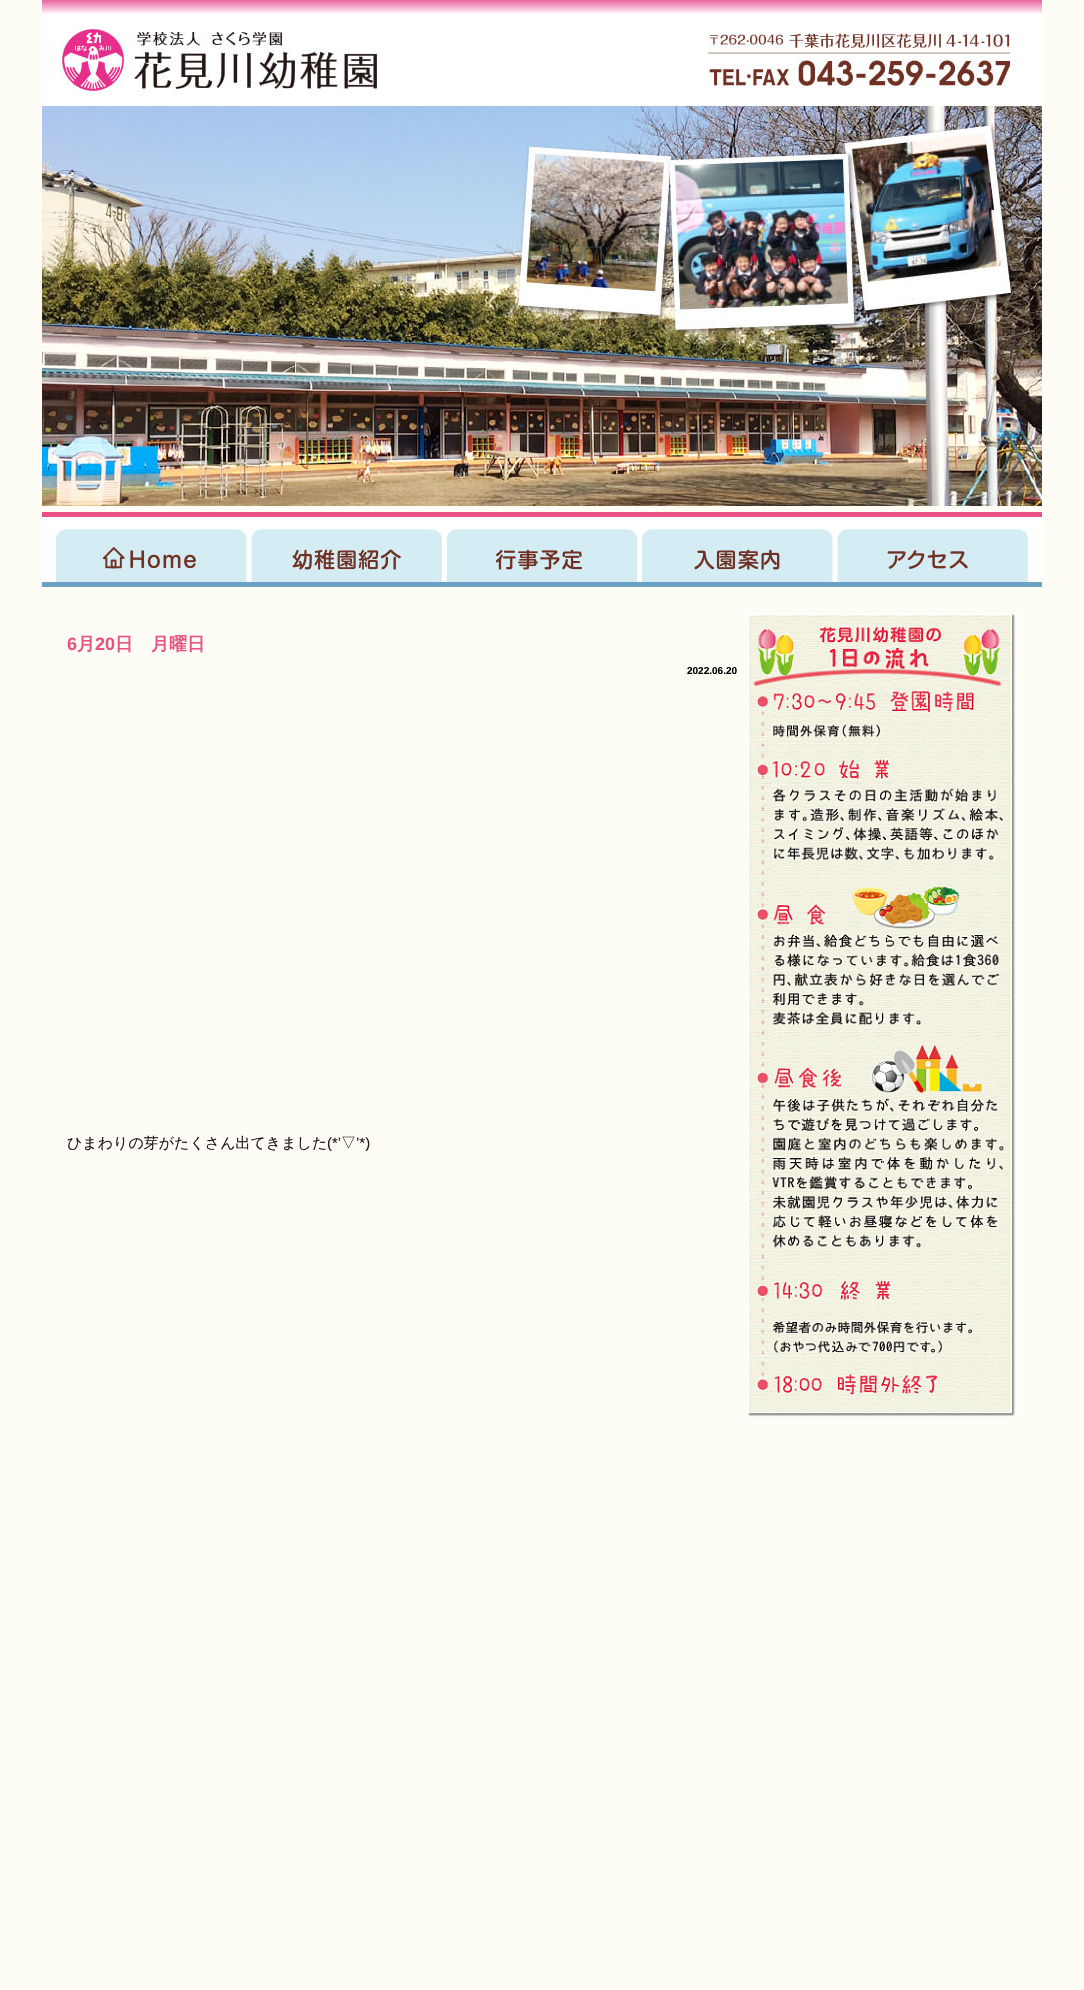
void draw(SkCanvas* c) {
SkPaint p;
p.setAntiAlias(true);
auto F=[&](const char* family, int weight, float size, bool italic = false){SkFontStyle style(weight, SkFontStyle::kNormal_Width,italic ? SkFontStyle::kItalic_Slant : SkFontStyle::kUpright_Slant);SkFont result(fontMgr->matchFamilyStyle(family, style), size);result.setSubpixel(true);return result;};
auto T=[&](const char* s, float x, float y, const SkFont& font){c->drawString(s, x, y, font, p);};
auto I=[&](const char* path, float x, float y, float w, float h){auto image = SkImages::DeferredFromEncodedData(SkData::MakeFromFileName(path));c->drawImageRect(image, SkRect::MakeXYWH(x, y, w, h), SkSamplingOptions());};
c->clear(0xfffdfcf5);
I("1.png",42,0,1000,105);
I("2.png",42,106,1000,400);
I("3.png",42,512,1000,75);
auto f1 = F("Liberation Sans",700,18);
p.setColor(0xffe95383);
T("6",67,650,f1);
auto f2 = F("WenQuanYi Zen Hei",700,18);
T("月",77,650,f2);
T("20",95,650,f1);
T("日　月曜日",115,650,f2);
auto f3 = F("Liberation Sans",700,10);
p.setColor(0xff000000);
T("2022.06.20",687,674,f3);
auto f4 = F("WenQuanYi Zen Hei",500,15);
p.setColor(0xff231815);
T("ひまわりの芽がたくさん出てきました",67,1148,f4);
auto f5 = F("Liberation Sans",400,15);
T("(*’",327,1148,f5);
T("▽",341,1148,f4);
T("’*)",356,1148,f5);
I("4.png",747,613,270,805);
}
